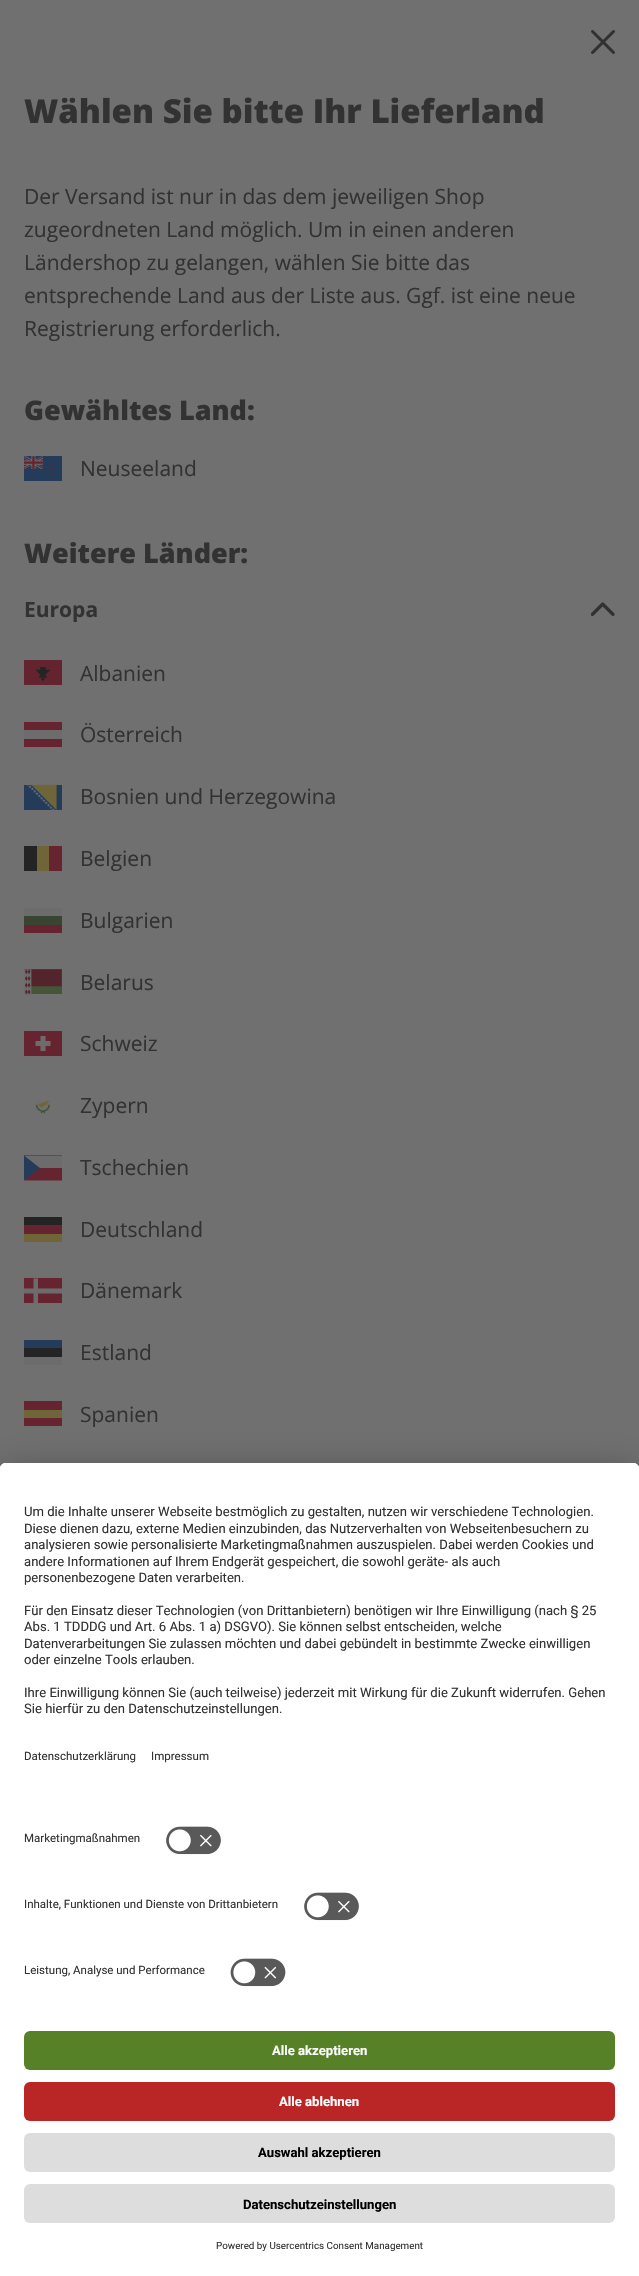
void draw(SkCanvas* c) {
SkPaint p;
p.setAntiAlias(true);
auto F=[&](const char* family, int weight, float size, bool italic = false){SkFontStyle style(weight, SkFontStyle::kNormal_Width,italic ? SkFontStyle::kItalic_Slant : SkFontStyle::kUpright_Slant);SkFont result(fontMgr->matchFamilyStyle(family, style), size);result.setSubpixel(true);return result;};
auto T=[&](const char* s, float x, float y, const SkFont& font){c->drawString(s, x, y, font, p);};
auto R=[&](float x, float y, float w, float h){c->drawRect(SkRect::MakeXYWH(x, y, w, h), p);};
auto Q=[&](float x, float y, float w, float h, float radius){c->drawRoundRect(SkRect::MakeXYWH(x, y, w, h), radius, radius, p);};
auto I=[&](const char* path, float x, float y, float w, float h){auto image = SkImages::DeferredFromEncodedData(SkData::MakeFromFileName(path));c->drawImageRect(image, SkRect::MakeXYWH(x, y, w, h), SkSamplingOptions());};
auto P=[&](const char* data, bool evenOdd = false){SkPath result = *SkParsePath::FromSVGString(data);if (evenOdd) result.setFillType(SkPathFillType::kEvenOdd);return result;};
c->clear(0xff707070);
I("1.png",591,30,24,24);
auto f1 = F("Open Sans",800,33);
p.setColor(0xff323232);
T("Wählen Sie bitte Ihr Lieferland",24,123,f1);
auto f2 = F("Open Sans",400,21);
T("Der Versand ist nur in das dem jeweiligen Shop",24,204,f2);
T("zugeordneten Land möglich. Um in einen anderen",24,237,f2);
T("Ländershop zu gelangen, wählen Sie bitte das",24,270,f2);
T("entsprechende Land aus der Liste aus. Ggf. ist eine neue",24,303,f2);
T("Registrierung erforderlich.",24,336,f2);
auto f3 = F("Open Sans",800,27);
T("Gewähltes Land:",24,420,f3);
I("2.png",24,456,38,25);
T("Neuseeland",80,476,f2);
T("Weitere Länder:",24,563,f3);
auto f4 = F("Open Sans",700,21);
T("Europa",24,617,f4);
I("3.png",591,602,24,15);
I("4.png",24,660,38,25);
T("Albanien",80,681,f2);
p.setColor(0xff6c6c6c);
R(24,730,38,9);
p.setColor(0xff65242f);
R(24,722,38,8);
R(24,739,38,8);
p.setColor(0xff323232);
T("Österreich",80,742,f2);
I("5.png",24,784,38,26);
T("Bosnien und Herzegowina",80,804,f2);
p.setColor(0xff706538);
R(37,846,12,25);
p.setColor(0xff242424);
R(24,846,13,25);
p.setColor(0xff65242f);
R(49,846,13,25);
p.setColor(0xff323232);
T("Belgien",80,866,f2);
p.setColor(0xff3a4531);
R(24,916,38,9);
p.setColor(0xff6c6c6c);
R(24,908,38,8);
p.setColor(0xff65242f);
R(24,925,38,8);
p.setColor(0xff323232);
T("Bulgarien",80,928,f2);
I("6.png",24,969,38,26);
T("Belarus",80,990,f2);
p.setColor(0xff65242f);
R(24,1031,38,25);
p.setColor(0xff6c6c6c);
c->drawPath(P("M50.5 1041h-5v-5h-5v5h-5v5h5v5h5v-5h5z"),p);
p.setColor(0xff323232);
T("Schweiz",80,1051,f2);
I("7.png",35,1100,15,14);
T("Zypern",80,1113,f2);
p.setColor(0xff243c5a);
R(24,1155,38,25);
p.setColor(0xff65242f);
c->drawPath(P("M62 1168v12.5h-38l16-12.5z"),p);
p.setColor(0xff6c6c6c);
c->drawPath(P("M62 1155.5v12.5h-22l-16-12.5z"),p);
p.setColor(0xff323232);
T("Tschechien",80,1175,f2);
p.setColor(0xff65242f);
R(24,1225,38,9);
p.setColor(0xff242424);
R(24,1217,38,8);
p.setColor(0xff706538);
R(24,1234,38,8);
p.setColor(0xff323232);
T("Deutschland",80,1237,f2);
p.setColor(0xff65242f);
R(24,1278,38,25);
p.setColor(0xff6c6c6c);
c->drawPath(P("M38 1278.5h-4.5v10h-9.5v5h9.5v10h4.5v-10h24v-5h-24z"),p);
p.setColor(0xff323232);
T("Dänemark",80,1298,f2);
p.setColor(0xff242424);
R(24,1348,38,9);
p.setColor(0xff243c5a);
R(24,1340,38,8);
p.setColor(0xff6c6c6c);
R(24,1357,38,8);
p.setColor(0xff323232);
T("Estland",80,1360,f2);
p.setColor(0xff706538);
R(24,1410,38,8);
p.setColor(0xff65242f);
R(24,1401,38,9);
R(24,1418,38,8);
p.setColor(0xff323232);
T("Spanien",80,1422,f2);
p.setColor(0x4d000000);
p.setMaskFilter(SkMaskFilter::MakeBlur(kNormal_SkBlurStyle, 21));
c->drawRoundRect(SkRect::MakeXYWH(0,1493,639,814),6,6,p);
p.setMaskFilter(nullptr);
p.setColor(0x38000000);
p.setMaskFilter(SkMaskFilter::MakeBlur(kNormal_SkBlurStyle, 19.5));
c->drawRoundRect(SkRect::MakeXYWH(0,1470,639,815),6,6,p);
p.setMaskFilter(nullptr);
p.setColor(0xffffffff);
c->drawPath(P("M6 1463h627c3.5 0 6 2.5 6 6v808h-639v-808c0-3.5 2.5-6 6-6z"),p);
c->drawPath(P("M6 1463h627c3.5 0 6 2.5 6 6v544h-639v-544c0-3.5 2.5-6 6-6z"),p);
c->drawPath(P("M6 1463h627c3.5 0 6 2.5 6 6v346h-639v-346c0-3.5 2.5-6 6-6z"),p);
auto f5 = F("Roboto",400,13.1);
p.setColor(0xff323232);
T("Um die Inhalte unserer Webseite bestmöglich zu gestalten, nutzen wir verschiedene Technologien.",24,1516,f5);
T("Diese dienen dazu, externe Medien einzubinden, das Nutzerverhalten von Webseitenbesuchern zu",24,1533,f5);
T("analysieren sowie personalisierte Marketingmaßnahmen auszuspielen. Dabei werden Cookies und",24,1549,f5);
T("andere Informationen auf Ihrem Endgerät gespeichert, die sowohl geräte- als auch",24,1566,f5);
T("personenbezogene Daten verarbeiten.",24,1582,f5);
T("Für den Einsatz dieser Technologien (von Drittanbietern) benötigen wir Ihre Einwilligung (nach § 25",24,1615,f5);
T("Abs. 1 TDDDG und Art. 6 Abs. 1 a) DSGVO). Sie können selbst entscheiden, welche",24,1631,f5);
T("Datenverarbeitungen Sie zulassen möchten und dabei gebündelt in bestimmte Zwecke einwilligen",24,1648,f5);
T("oder einzelne Tools erlauben.",24,1664,f5);
T("Ihre Einwilligung können Sie (auch teilweise) jederzeit mit Wirkung für die Zukunft widerrufen. Gehen",24,1697,f5);
T("Sie hierfür zu den Datenschutzeinstellungen.",24,1713,f5);
auto f6 = F("Roboto",400,11.5);
T("Datenschutzerklärung",24,1760,f6);
T("Impressum",151,1760,f6);
T("Marketingmaßnahmen",24,1842,f6);
I("8.png",166,1826,55,29);
T("Inhalte, Funktionen und Dienste von Drittanbietern",24,1908,f6);
I("8.png",304,1892,55,29);
T("Leistung, Analyse und Performance",24,1974,f6);
I("9.png",230,1958,56,29);
p.setColor(0xff578127);
Q(24,2031,591,39,6);
auto f7 = F("Roboto",700,13.1);
p.setColor(0xffffffff);
T("Alle akzeptieren",272,2055,f7);
p.setColor(0xffba2626);
Q(24,2082,591,39,6);
p.setColor(0xffffffff);
T("Alle ablehnen",279,2106,f7);
p.setColor(0xffdddddd);
Q(24,2133,591,39,6);
p.setColor(0xff000000);
T("Auswahl akzeptieren",258,2157,f7);
p.setColor(0xffdddddd);
Q(24,2184,591,39,6);
p.setColor(0xff000000);
T("Datenschutzeinstellungen",243,2209,f7);
auto f8 = F("Roboto",400,9.8);
p.setColor(0xff323232);
T("Powered by Usercentrics Consent Management",216,2249,f8);
}
